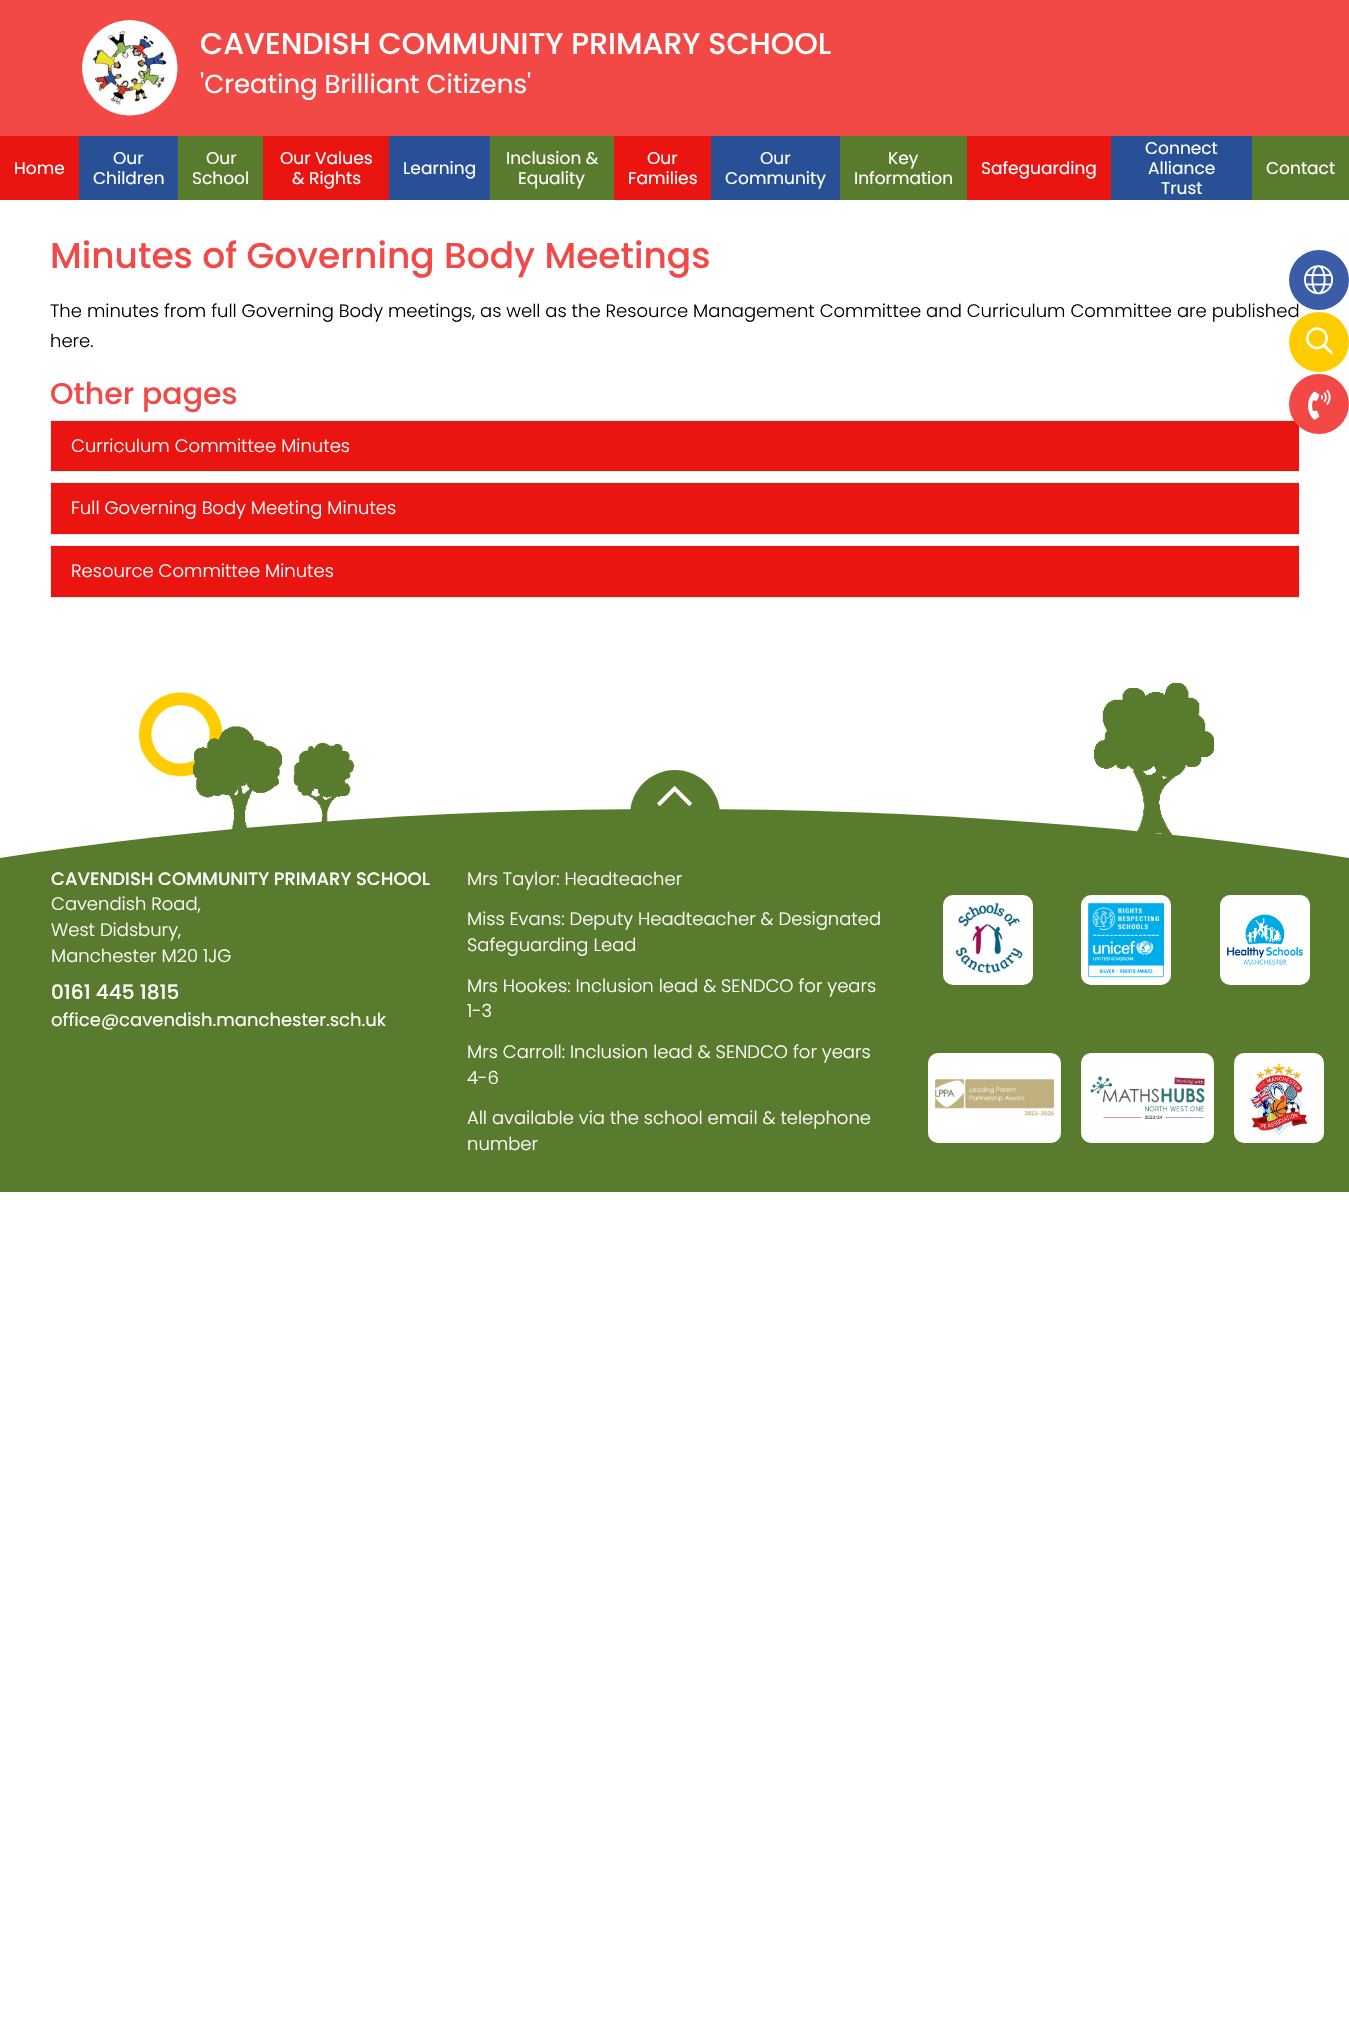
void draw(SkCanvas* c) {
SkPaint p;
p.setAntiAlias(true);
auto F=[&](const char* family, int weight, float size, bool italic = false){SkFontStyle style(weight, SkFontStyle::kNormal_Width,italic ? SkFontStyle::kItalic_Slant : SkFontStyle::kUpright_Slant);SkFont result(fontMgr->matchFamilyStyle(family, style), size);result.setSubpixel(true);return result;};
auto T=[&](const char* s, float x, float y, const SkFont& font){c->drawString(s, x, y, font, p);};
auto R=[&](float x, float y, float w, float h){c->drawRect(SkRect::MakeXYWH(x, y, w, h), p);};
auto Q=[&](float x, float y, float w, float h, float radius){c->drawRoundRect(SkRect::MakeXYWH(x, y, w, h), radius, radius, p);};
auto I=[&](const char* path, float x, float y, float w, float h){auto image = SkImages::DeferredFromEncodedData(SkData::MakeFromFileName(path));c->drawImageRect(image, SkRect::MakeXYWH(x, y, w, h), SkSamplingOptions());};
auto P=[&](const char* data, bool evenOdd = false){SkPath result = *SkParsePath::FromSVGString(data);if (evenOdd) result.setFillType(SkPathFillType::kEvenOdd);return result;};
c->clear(0xffffffff);
p.setColor(0xfff24846);
R(0,0,1349,136);
I("1.png",82,20,96,96);
auto f1 = F("Poppins",500,30);
p.setColor(0xffffffff);
T("CAVENDISH COMMUNITY PRIMARY SCHOOL",200,54,f1);
auto f2 = F("Poppins",400,26);
T("'Creating Brilliant Citizens'",200,93,f2);
p.setColor(0xffea1410);
R(0,136,79,64);
auto f3 = F("Poppins",400,17);
p.setColor(0xffffffff);
T("Home",14,174,f3);
p.setColor(0xff285096);
R(79,136,99,64);
p.setColor(0xffffffff);
T("Our",113,164,f3);
T("Children",93,184,f3);
p.setColor(0xff587b2d);
R(178,136,85,64);
p.setColor(0xffffffff);
T("Our",206,164,f3);
T("School",192,184,f3);
p.setColor(0xffea1410);
R(263,136,126,64);
p.setColor(0xffffffff);
T("Our Values",280,164,f3);
T("& Rights",292,184,f3);
p.setColor(0xff285096);
R(389,136,101,64);
p.setColor(0xffffffff);
T("Learning",403,174,f3);
p.setColor(0xff587b2d);
R(490,136,124,64);
p.setColor(0xffffffff);
T("Inclusion &",506,164,f3);
T("Equality",518,184,f3);
p.setColor(0xffea1410);
R(614,136,97,64);
p.setColor(0xffffffff);
T("Our",647,164,f3);
T("Families",628,184,f3);
p.setColor(0xff285096);
R(711,136,129,64);
p.setColor(0xffffffff);
T("Our",760,164,f3);
T("Community",725,184,f3);
p.setColor(0xff587b2d);
R(840,136,127,64);
p.setColor(0xffffffff);
T("Key",888,164,f3);
T("Information",854,184,f3);
p.setColor(0xffea1410);
R(967,136,144,64);
p.setColor(0xffffffff);
T("Safeguarding",981,174,f3);
p.setColor(0xff285096);
R(1111,136,141,64);
p.setColor(0xffffffff);
T("Connect",1145,154,f3);
T("Alliance",1148,174,f3);
T("Trust",1161,194,f3);
p.setColor(0xff587b2d);
R(1252,136,97,64);
p.setColor(0xffffffff);
T("Contact",1266,174,f3);
auto f4 = F("Poppins",500,36);
p.setColor(0xfff24846);
T("Minutes of Governing Body Meetings",50,268,f4);
auto f5 = F("Poppins",300,18);
p.setColor(0xff000000);
T("The minutes from full Governing Body meetings, as well as the Resource Management Committee and Curriculum Committee are published",50,317,f5);
T("here.",50,347,f5);
p.setColor(0xfff24846);
T("Other pages",50,404,f1);
p.setColor(0xffea1410);
c->drawRect(SkRect::MakeXYWH(50.5,420.5,1249,51),p);
p.setStroke(true);
p.setStrokeWidth(1);
p.setColor(0xffeeeeee);
c->drawRect(SkRect::MakeXYWH(50.5,420.5,1249,51),p);
p.setStroke(false);
p.setColor(0xffffffff);
T("Curriculum Committee Minutes",71,452,f5);
p.setColor(0xffea1410);
c->drawRect(SkRect::MakeXYWH(50.5,482.5,1249,52),p);
p.setStroke(true);
p.setColor(0xffeeeeee);
c->drawRect(SkRect::MakeXYWH(50.5,482.5,1249,52),p);
p.setStroke(false);
p.setColor(0xffffffff);
T("Full Governing Body Meeting Minutes",71,514,f5);
p.setColor(0xffea1410);
c->drawRect(SkRect::MakeXYWH(50.5,545.5,1249,52),p);
p.setStroke(true);
p.setColor(0xffeeeeee);
c->drawRect(SkRect::MakeXYWH(50.5,545.5,1249,52),p);
p.setStroke(false);
p.setColor(0xffffffff);
T("Resource Committee Minutes",71,577,f5);
p.setColor(0xff3b5ca7);
c->drawCircle(1319,280,30,p);
I("2.png",1304,265,30,30);
p.setColor(0xffffcc00);
c->drawCircle(1319,342,30,p);
I("3.png",1306,327,27,28);
p.setColor(0xfff24846);
c->drawCircle(1319,404,30,p);
I("4.png",1308,389,23,31);
I("5.png",139,692,216,148);
p.setColor(0xff587b2d);
c->drawCircle(675,815,45,p);
I("6.png",657,786,35,20);
I("7.png",1094,683,120,154);
c->drawPath(P("M674 809c246 0 477 18 675 49v334h-1349v-334c198-31 429-49 674-49z"),p);
auto f6 = F("Poppins",500,18);
p.setColor(0xffffffff);
T("CAVENDISH COMMUNITY PRIMARY SCHOOL",51,885,f6);
T("Cavendish Road,",51,910,f5);
T("West Didsbury,",51,936,f5);
T("Manchester M20 1JG",51,962,f5);
auto f7 = F("Poppins",500,20);
T("0161 445 1815",51,999,f7);
auto f8 = F("Poppins",400,18);
T("office@cavendish.manchester.sch.uk",51,1026,f8);
T("Mrs Taylor: Headteacher",467,885,f5);
T("Miss Evans: Deputy Headteacher & Designated",467,925,f5);
T("Safeguarding Lead",467,951,f5);
T("Mrs Hookes: Inclusion lead & SENDCO for years",467,992,f5);
T("1-3",467,1017,f5);
T("Mrs Carroll: Inclusion lead & SENDCO for years",467,1058,f5);
T("4-6",467,1084,f5);
T("All available via the school email & telephone",467,1124,f5);
T("number",467,1150,f5);
Q(943,895,90,90,10);
I("8.png",953,902,70,73);
Q(1081,895,90,90,10);
I("9.png",1088,902,76,76);
Q(1220,895,90,90,10);
I("10.png",1227,914,76,51);
Q(928,1053,133,90,10);
I("11.png",935,1079,119,38);
Q(1081,1053,133,90,10);
I("12.png",1090,1076,115,44);
Q(1234,1053,90,90,10);
I("13.png",1250,1060,59,75);
}
